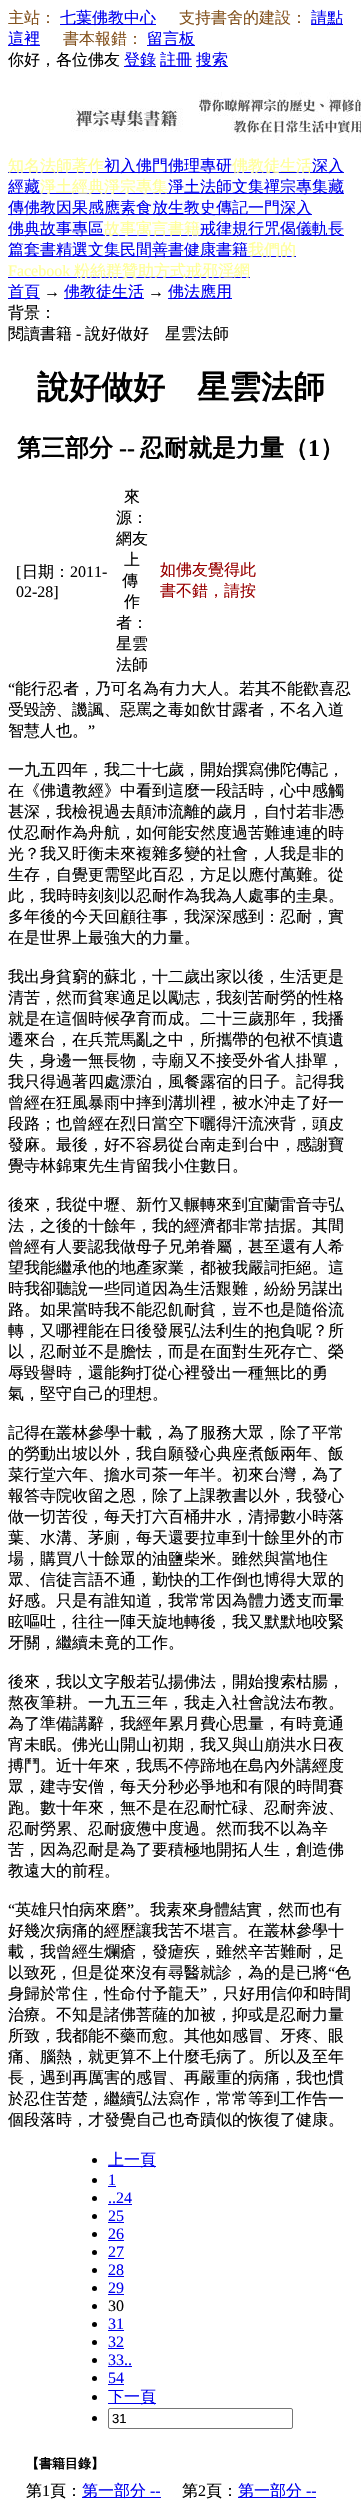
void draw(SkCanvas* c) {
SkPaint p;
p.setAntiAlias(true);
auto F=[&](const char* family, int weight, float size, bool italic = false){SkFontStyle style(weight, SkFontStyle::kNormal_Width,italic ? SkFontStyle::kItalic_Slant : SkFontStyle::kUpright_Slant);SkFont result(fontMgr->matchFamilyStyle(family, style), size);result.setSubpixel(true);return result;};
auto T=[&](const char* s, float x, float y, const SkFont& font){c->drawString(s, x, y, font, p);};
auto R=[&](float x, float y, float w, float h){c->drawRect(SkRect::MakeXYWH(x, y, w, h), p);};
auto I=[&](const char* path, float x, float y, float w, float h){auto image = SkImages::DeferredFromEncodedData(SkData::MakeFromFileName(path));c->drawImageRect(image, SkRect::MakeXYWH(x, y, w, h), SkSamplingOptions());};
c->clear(0xffffffff);
auto f1 = F("WenQuanYi Zen Hei",500,16);
p.setColor(0xff83521e);
T("主站：",8,23,f1);
p.setColor(0xff0000ee);
R(60,24,96,1);
T("七葉佛教中心",60,23,f1);
p.setColor(0xff83521e);
T("支持書舍的建設：",179,23,f1);
p.setColor(0xff0000ee);
R(311,24,32,1);
T("請點",311,23,f1);
R(8,45,32,1);
T("這裡",8,44,f1);
p.setColor(0xff83521e);
T("書本報錯：",63,44,f1);
p.setColor(0xff0000ee);
R(147,45,48,1);
T("留言板",147,44,f1);
p.setColor(0xff000000);
T("你好，各位佛友",8,65,f1);
p.setColor(0xff0000ee);
R(124,66,32,1);
T("登錄",124,65,f1);
R(160,66,32,1);
T("註冊",160,65,f1);
R(196,66,32,1);
T("搜索",196,65,f1);
I("1.png",71,92,290,48);
R(8,172,336,1);
p.setColor(0xffffff99);
T("知名法師著作",8,171,f1);
p.setColor(0xff0000ee);
T("初入佛門佛理專研",104,171,f1);
p.setColor(0xffffff99);
T("佛教徒生活",232,171,f1);
p.setColor(0xff0000ee);
T("深入",312,171,f1);
R(8,193,336,1);
T("經藏",8,192,f1);
p.setColor(0xffffff99);
T("淨土經典淨宗專集",40,192,f1);
p.setColor(0xff0000ee);
T("淨土法師文集禪宗專集藏",168,192,f1);
R(8,214,304,1);
T("傳佛教因果感應素食放生教史傳記一門深入",8,213,f1);
R(8,235,336,1);
T("佛典故事專區",8,234,f1);
p.setColor(0xffffff99);
T("故事寓言書籍",104,234,f1);
p.setColor(0xff0000ee);
T("戒律規行咒偈儀軌長",200,234,f1);
R(8,256,288,1);
T("篇套書精選文集民間善書健康書籍",8,255,f1);
p.setColor(0xffffff99);
T("我們的",248,255,f1);
auto f2 = F("Liberation Serif",400,16);
T("Facebook",8,276,f2);
p.setColor(0xff0000ee);
R(8,277,242,1);
p.setColor(0xffffff99);
T("粉絲群贊助方式戒邪淫網",74,276,f1);
p.setColor(0xff0000ee);
R(8,298,32,1);
T("首頁",8,297,f1);
p.setColor(0xff000000);
T("→",44,297,f2);
p.setColor(0xff0000ee);
R(64,298,80,1);
T("佛教徒生活",64,297,f1);
p.setColor(0xff000000);
T("→",148,297,f2);
p.setColor(0xff0000ee);
R(168,298,64,1);
T("佛法應用",168,297,f1);
p.setColor(0xff000000);
T("背景：",8,318,f1);
T("閱讀書籍",8,339,f1);
T("-",76,339,f2);
T("說好做好　星雲法師",85,339,f1);
auto f3 = F("WenQuanYi Zen Hei",700,32);
T("說好做好　星雲法師",37,398,f3);
auto f4 = F("WenQuanYi Zen Hei",700,24);
T("第三部分",17,456,f4);
auto f5 = F("Liberation Serif",700,24);
T("--",119,456,f5);
T("忍耐就是力量（",140,456,f4);
T("1",308,456,f5);
T("）",320,456,f4);
T("[",16,577,f2);
T("日期：",22,577,f1);
T("2011-",70,577,f2);
T("02-28]",16,597,f2);
T("來",124,502,f1);
T("源：",116,523,f1);
T("網友",116,544,f1);
T("上",124,565,f1);
T("傳",122,586,f1);
T("作",124,607,f1);
T("者：",116,628,f1);
T("星雲",116,649,f1);
T("法師",116,670,f1);
p.setColor(0xff990000);
T("如佛友覺得此",160,575,f1);
T("書不錯，請按",160,596,f1);
p.setColor(0xff000000);
T("“",8,694,f2);
T("能行忍者，乃可名為有力大人。若其不能歡喜忍",15,694,f1);
T("受毀謗、譏諷、惡罵之毒如飲甘露者，不名入道",8,715,f1);
T("智慧人也。",8,736,f1);
T("”",88,736,f2);
T("一九五四年，我二十七歲，開始撰寫佛陀傳記，",8,775,f1);
T("在《佛遺教經》中看到這麼一段話時，心中感觸",8,796,f1);
T("甚深，我檢視過去顛沛流離的歲月，自忖若非憑",8,817,f1);
T("仗忍耐作為舟航，如何能安然度過苦難連連的時",8,838,f1);
T("光？我又盱衡未來複雜多變的社會，人我是非的",8,859,f1);
T("生存，自覺更需堅此百忍，方足以應付萬難。從",8,880,f1);
T("此，我時時刻刻以忍耐作為我為人處事的圭臬。",8,901,f1);
T("多年後的今天回顧往事，我深深感到：忍耐，實",8,922,f1);
T("在是世界上最強大的力量。",8,943,f1);
T("我出身貧窮的蘇北，十二歲出家以後，生活更是",8,982,f1);
T("清苦，然而貧寒適足以勵志，我刻苦耐勞的性格",8,1003,f1);
T("就是在這個時候孕育而成。二十三歲那年，我播",8,1024,f1);
T("遷來台，在兵荒馬亂之中，所攜帶的包袱不慎遺",8,1045,f1);
T("失，身邊一無長物，寺廟又不接受外省人掛單，",8,1066,f1);
T("我只得過著四處漂泊，風餐露宿的日子。記得我",8,1087,f1);
T("曾經在狂風暴雨中摔到溝圳裡，被水沖走了好一",8,1108,f1);
T("段路；也曾經在烈日當空下曬得汗流浹背，頭皮",8,1129,f1);
T("發麻。最後，好不容易從台南走到台中，感謝寶",8,1150,f1);
T("覺寺林錦東先生肯留我小住數日。",8,1171,f1);
T("後來，我從中壢、新竹又輾轉來到宜蘭雷音寺弘",8,1210,f1);
T("法，之後的十餘年，我的經濟都非常拮据。其間",8,1231,f1);
T("曾經有人要認我做母子兄弟眷屬，甚至還有人希",8,1252,f1);
T("望我能繼承他的地產家業，都被我嚴詞拒絕。這",8,1273,f1);
T("時我卻聽說一些同道因為生活艱難，紛紛另謀出",8,1294,f1);
T("路。如果當時我不能忍飢耐貧，豈不也是隨俗流",8,1315,f1);
T("轉，又哪裡能在日後發展弘法利生的抱負呢？所",8,1336,f1);
T("以，忍耐並不是膽怯，而是在面對生死存亡、榮",8,1357,f1);
T("辱毀譽時，還能夠打從心裡發出一種無比的勇",8,1378,f1);
T("氣，堅守自己的理想。",8,1399,f1);
T("記得在叢林參學十載，為了服務大眾，除了平常",8,1438,f1);
T("的勞動出坡以外，我自願發心典座煮飯兩年、飯",8,1459,f1);
T("菜行堂六年、擔水司茶一年半。初來台灣，為了",8,1480,f1);
T("報答寺院收留之恩，除了上課教書以外，我發心",8,1501,f1);
T("做一切苦役，每天打六百桶井水，清掃數小時落",8,1522,f1);
T("葉、水溝、茅廁，每天還要拉車到十餘里外的市",8,1543,f1);
T("場，購買八十餘眾的油鹽柴米。雖然與當地住",8,1564,f1);
T("眾、信徒言語不通，勤快的工作倒也博得大眾的",8,1585,f1);
T("好感。只是有誰知道，我常常因為體力透支而暈",8,1606,f1);
T("眩嘔吐，往往一陣天旋地轉後，我又默默地咬緊",8,1627,f1);
T("牙關，繼續未竟的工作。",8,1648,f1);
T("後來，我以文字般若弘揚佛法，開始搜索枯腸，",8,1687,f1);
T("熬夜筆耕。一九五三年，我走入社會說法布教。",8,1708,f1);
T("為了準備講辭，我經年累月費心思量，有時竟通",8,1729,f1);
T("宵未眠。佛光山開山初期，我又與山崩洪水日夜",8,1750,f1);
T("搏鬥。近十年來，我馬不停蹄地在島內外講經度",8,1771,f1);
T("眾，建寺安僧，每天分秒必爭地和有限的時間賽",8,1792,f1);
T("跑。數十年來，無不是在忍耐忙碌、忍耐奔波、",8,1813,f1);
T("忍耐勞累、忍耐疲憊中度過。然而我不以為辛",8,1834,f1);
T("苦，因為忍耐是為了要積極地開拓人生，創造佛",8,1855,f1);
T("教遠大的前程。",8,1876,f1);
T("“",8,1915,f2);
T("英雄只怕病來磨",15,1915,f1);
T("”",127,1915,f2);
T("。我素來身體結實，然而也有",134,1915,f1);
T("好幾次病痛的經歷讓我苦不堪言。在叢林參學十",8,1936,f1);
T("載，我曾經生爛瘡，發瘧疾，雖然辛苦難耐，足",8,1957,f1);
T("以致死，但是從來沒有尋醫就診，為的是已將",8,1978,f1);
T("“",328,1978,f2);
T("色",335,1978,f1);
T("身歸於常住，性命付予龍天",8,1999,f1);
T("”",200,1999,f2);
T("，只好用信仰和時間",207,1999,f1);
T("治療。不知是諸佛菩薩的加被，抑或是忍耐力量",8,2020,f1);
T("所致，我都能不藥而愈。其他如感冒、牙疼、眼",8,2041,f1);
T("痛、腦熱，就更算不上什麼毛病了。所以及至年",8,2062,f1);
T("長，遇到再厲害的感冒、再嚴重的病痛，我也慣",8,2083,f1);
T("於忍住苦楚，繼續弘法寫作，常常等到工作告一",8,2104,f1);
T("個段落時，才發覺自己也奇蹟似的恢復了健康。",8,2125,f1);
c->drawCircle(94.5,2160.5,2.5,p);
p.setColor(0xff0000ee);
R(108,2166,48,1);
T("上一頁",108,2165,f1);
p.setColor(0xff000000);
c->drawCircle(94.5,2180.5,2.5,p);
p.setColor(0xff0000ee);
T("1",108,2185,f2);
R(108,2186,8,1);
p.setColor(0xff000000);
c->drawCircle(94.5,2198.5,2.5,p);
p.setColor(0xff0000ee);
T("..24",108,2203,f2);
R(108,2204,24,1);
p.setColor(0xff000000);
c->drawCircle(94.5,2216.5,2.5,p);
p.setColor(0xff0000ee);
T("25",108,2221,f2);
R(108,2222,16,1);
p.setColor(0xff000000);
c->drawCircle(94.5,2234.5,2.5,p);
p.setColor(0xff0000ee);
T("26",108,2239,f2);
R(108,2240,16,1);
p.setColor(0xff000000);
c->drawCircle(94.5,2252.5,2.5,p);
p.setColor(0xff0000ee);
T("27",108,2257,f2);
R(108,2258,16,1);
p.setColor(0xff000000);
c->drawCircle(94.5,2270.5,2.5,p);
p.setColor(0xff0000ee);
T("28",108,2275,f2);
R(108,2276,16,1);
p.setColor(0xff000000);
c->drawCircle(94.5,2288.5,2.5,p);
p.setColor(0xff0000ee);
T("29",108,2293,f2);
R(108,2294,16,1);
p.setColor(0xff000000);
c->drawCircle(94.5,2306.5,2.5,p);
T("30",108,2311,f2);
c->drawCircle(94.5,2324.5,2.5,p);
p.setColor(0xff0000ee);
T("31",108,2329,f2);
R(108,2330,16,1);
p.setColor(0xff000000);
c->drawCircle(94.5,2342.5,2.5,p);
p.setColor(0xff0000ee);
T("32",108,2347,f2);
R(108,2348,16,1);
p.setColor(0xff000000);
c->drawCircle(94.5,2360.5,2.5,p);
p.setColor(0xff0000ee);
T("33..",108,2365,f2);
R(108,2366,24,1);
p.setColor(0xff000000);
c->drawCircle(94.5,2378.5,2.5,p);
p.setColor(0xff0000ee);
T("54",108,2383,f2);
R(108,2384,16,1);
p.setColor(0xff000000);
c->drawCircle(94.5,2397.5,2.5,p);
p.setColor(0xff0000ee);
R(108,2403,48,1);
T("下一頁",108,2402,f1);
p.setColor(0xff000000);
c->drawCircle(94.5,2418.5,2.5,p);
p.setStroke(true);
p.setStrokeWidth(1);
p.setColor(0xff767676);
c->drawRoundRect(SkRect::MakeXYWH(108.5,2408.5,184,20),1.5,1.5,p);
auto f6 = F("Liberation Sans",400,13);
p.setStroke(false);
p.setColor(0xff000000);
T("31",112,2423,f6);
auto f7 = F("WenQuanYi Zen Hei",700,13);
T("【書籍目錄】",26,2468,f7);
T("第",26,2496,f1);
T("1",42,2496,f2);
T("頁：",50,2496,f1);
p.setColor(0xff0000ee);
R(82,2497,79,1);
T("第一部分",82,2496,f1);
T("--",150,2496,f2);
p.setColor(0xff000000);
T("第",182,2496,f1);
T("2",198,2496,f2);
T("頁：",206,2496,f1);
p.setColor(0xff0000ee);
R(238,2497,78,1);
T("第一部分",238,2496,f1);
T("--",306,2496,f2);
}
